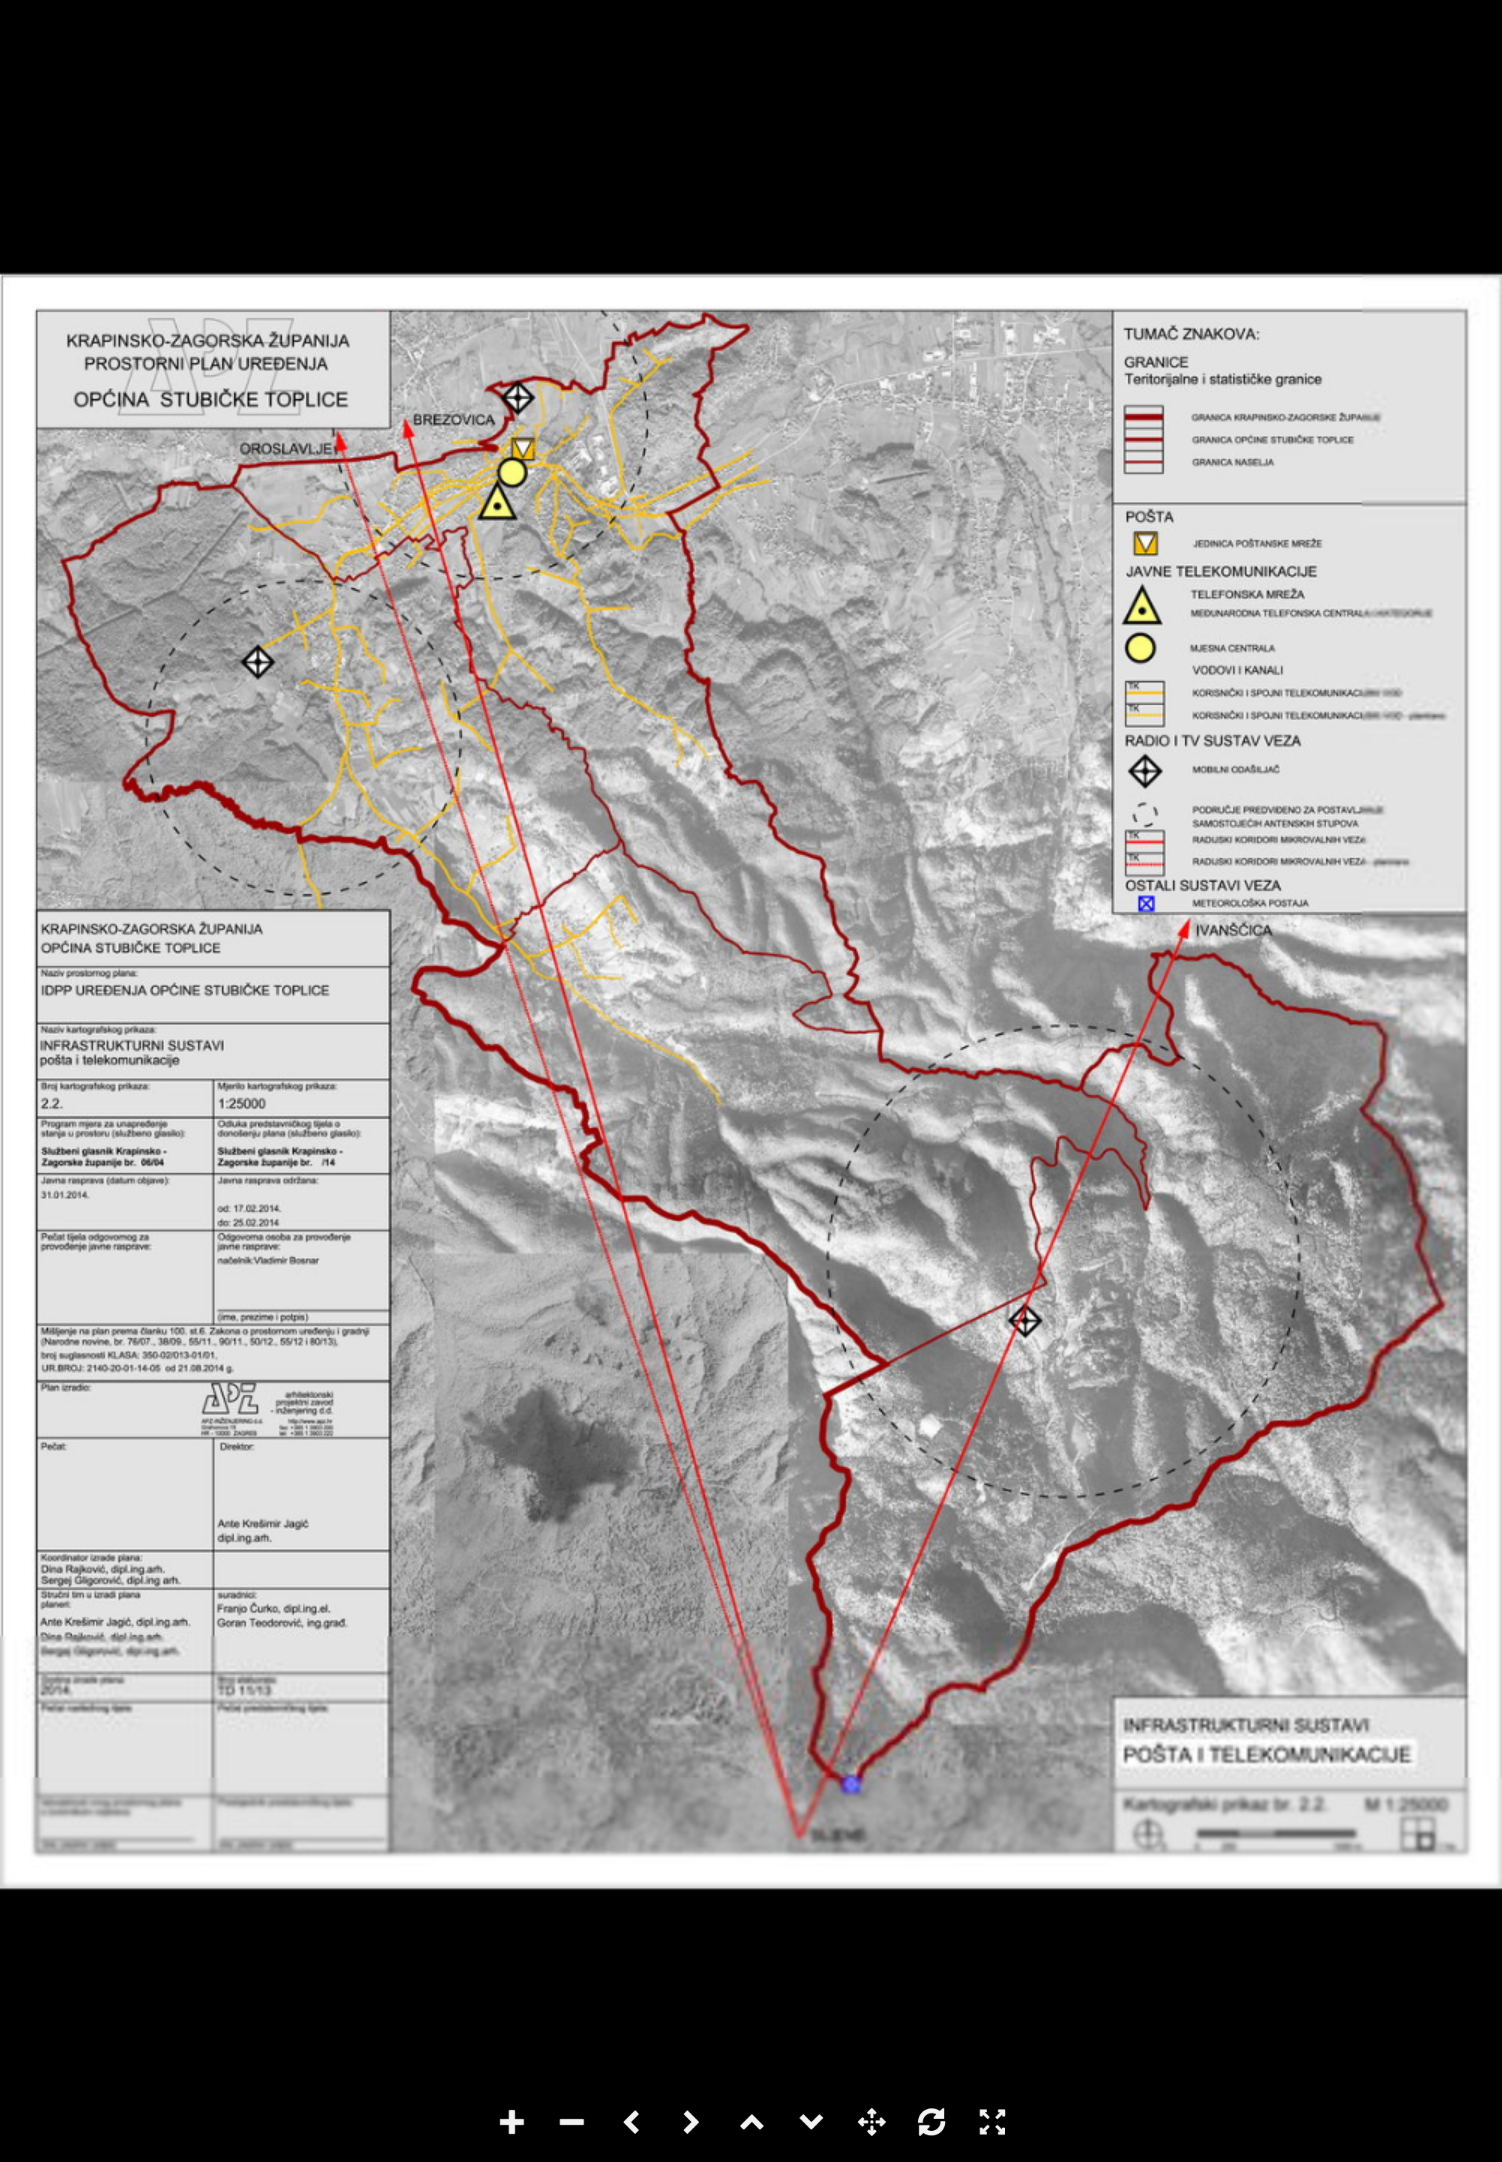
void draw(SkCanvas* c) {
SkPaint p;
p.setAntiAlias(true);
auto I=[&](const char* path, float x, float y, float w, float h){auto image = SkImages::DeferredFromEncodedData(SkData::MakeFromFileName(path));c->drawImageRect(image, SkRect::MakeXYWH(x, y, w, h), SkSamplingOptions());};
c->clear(0xff000000);
I("1.png",0,272,1502,1619);
I("2.png",499,2109,26,26);
I("3.png",559,2118,26,8);
I("4.png",623,2110,16,24);
I("5.png",683,2110,16,24);
I("6.png",740,2114,24,16);
I("7.png",799,2114,25,16);
I("8.png",857,2107,29,29);
I("9.png",918,2107,28,29);
I("10.png",979,2109,27,27);
}
